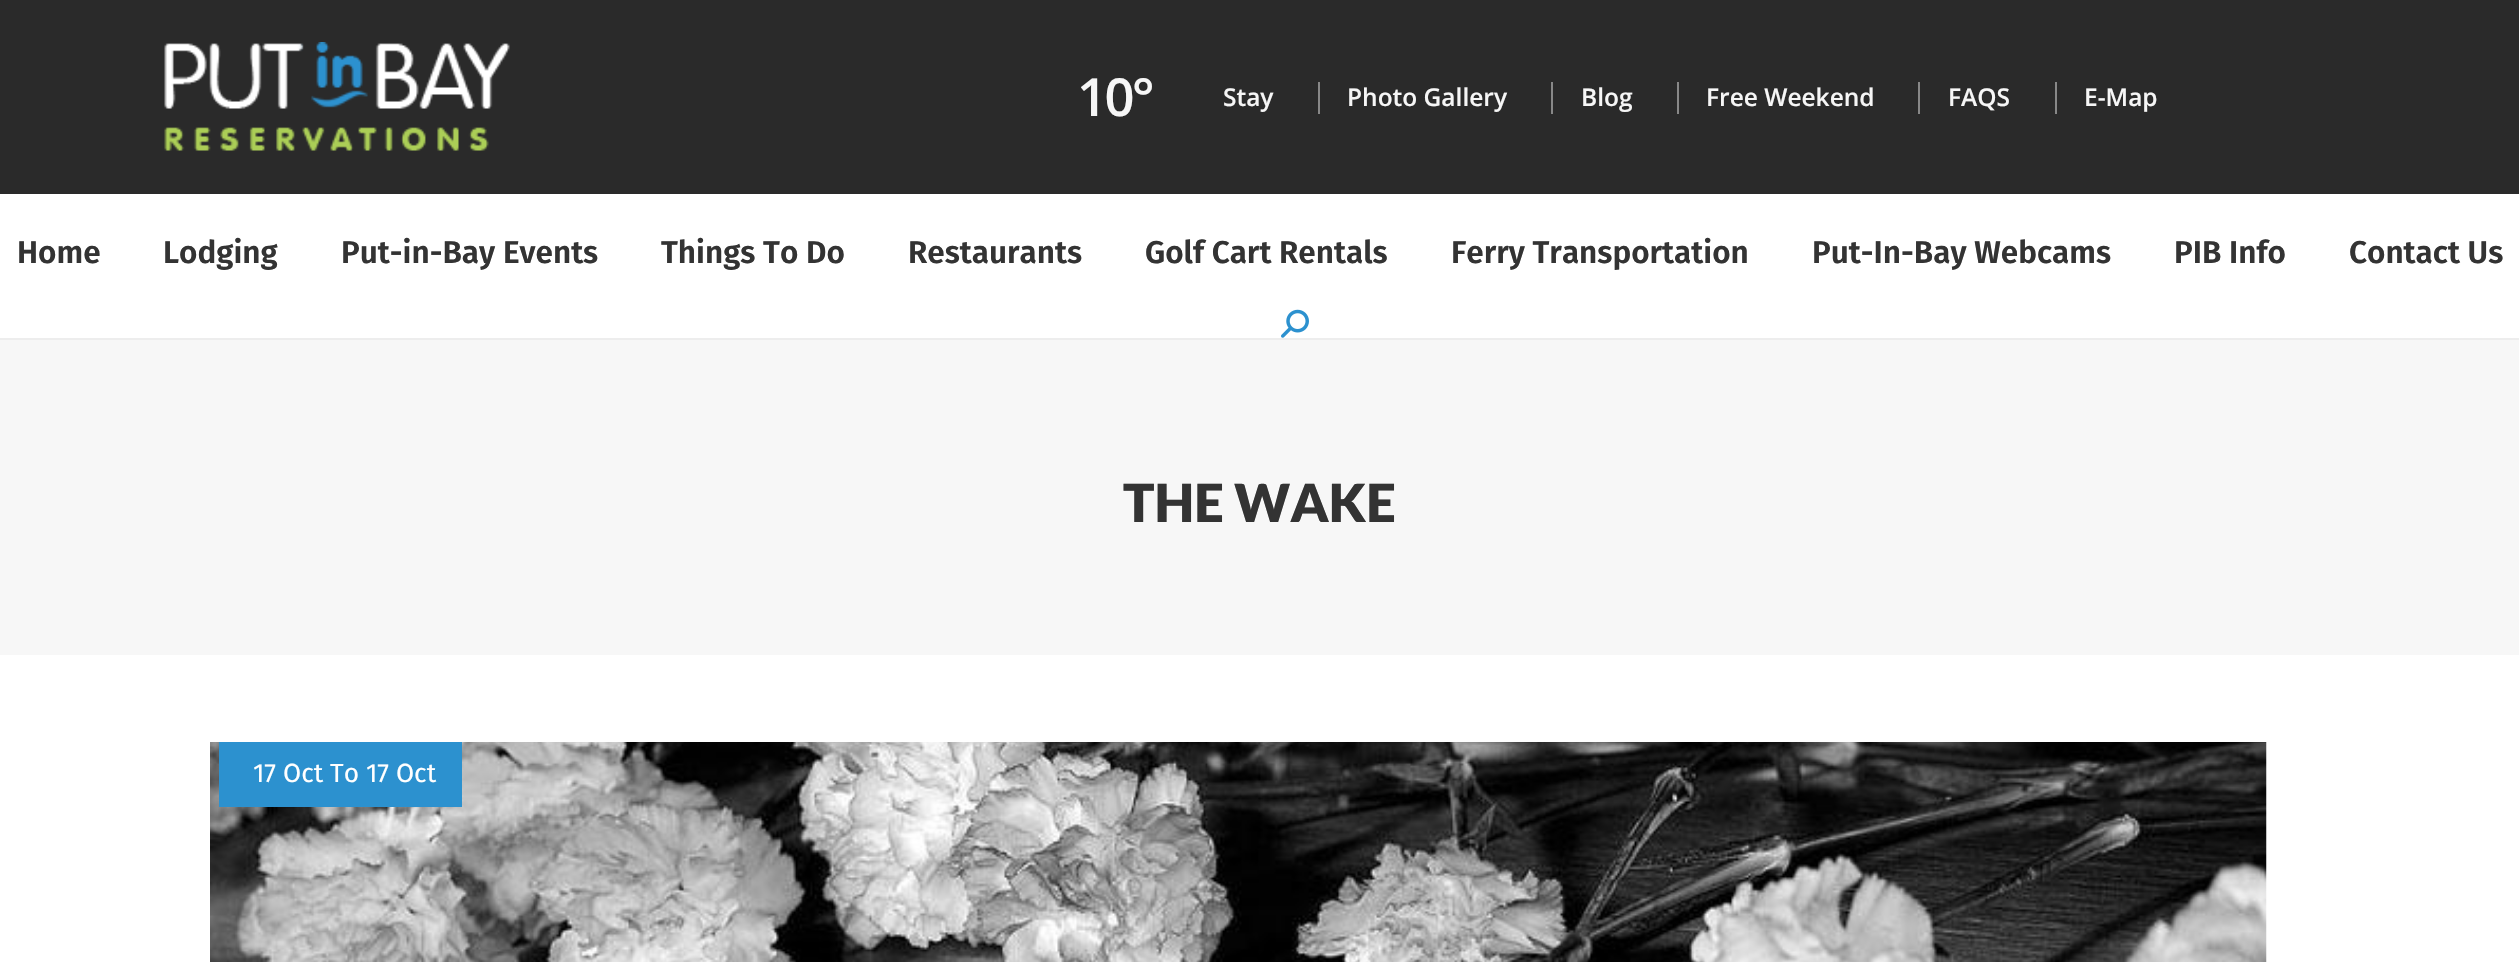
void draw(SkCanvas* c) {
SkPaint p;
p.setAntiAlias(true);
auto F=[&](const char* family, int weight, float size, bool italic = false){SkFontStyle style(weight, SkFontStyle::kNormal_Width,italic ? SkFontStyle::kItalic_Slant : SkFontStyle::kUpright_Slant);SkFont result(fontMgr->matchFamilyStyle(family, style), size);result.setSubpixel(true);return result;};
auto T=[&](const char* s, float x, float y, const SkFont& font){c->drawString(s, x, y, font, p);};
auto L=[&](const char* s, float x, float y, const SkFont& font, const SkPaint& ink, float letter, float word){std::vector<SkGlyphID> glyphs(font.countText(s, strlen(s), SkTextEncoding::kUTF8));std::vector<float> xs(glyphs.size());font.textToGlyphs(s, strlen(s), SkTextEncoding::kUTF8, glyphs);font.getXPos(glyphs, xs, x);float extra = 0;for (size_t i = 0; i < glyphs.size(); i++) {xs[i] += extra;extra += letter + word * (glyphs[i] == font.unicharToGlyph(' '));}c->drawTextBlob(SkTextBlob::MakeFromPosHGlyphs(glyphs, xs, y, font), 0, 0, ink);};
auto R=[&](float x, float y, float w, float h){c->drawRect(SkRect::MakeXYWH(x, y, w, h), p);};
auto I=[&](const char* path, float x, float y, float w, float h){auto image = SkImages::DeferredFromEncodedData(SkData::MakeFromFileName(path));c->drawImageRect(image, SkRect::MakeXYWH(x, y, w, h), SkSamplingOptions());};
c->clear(0xffffffff);
p.setColor(0xff2a2a2a);
R(0,0,2519,194);
p.setColor(0xffededed);
R(0,338,2519,2);
I("1.png",164,42,346,109);
auto f1 = F("Open Sans",600,52.5);
p.setColor(0xfff6f6f6);
L("10°",1077,116,f1,p,-2.5,0);
p.setColor(0xff888888);
R(1318,82,2,32);
auto f2 = F("Open Sans",600,24.5);
p.setColor(0xfff6f6f6);
T("Stay",1223,106,f2);
p.setColor(0xff888888);
R(1551,82,2,32);
p.setColor(0xfff6f6f6);
T("Photo Gallery",1347,106,f2);
p.setColor(0xff888888);
R(1677,82,2,32);
p.setColor(0xfff6f6f6);
T("Blog",1581,106,f2);
p.setColor(0xff888888);
R(1918,82,2,32);
p.setColor(0xfff6f6f6);
T("Free Weekend",1706,106,f2);
p.setColor(0xff888888);
R(2055,82,2,32);
p.setColor(0xfff6f6f6);
T("FAQS",1948,106,f2);
T("E-Map",2084,106,f2);
auto f3 = F("Fira Sans",600,31.5);
p.setColor(0xff333333);
T("Home",17,263,f3);
T("Lodging",163,263,f3);
T("Put-in-Bay Events",341,263,f3);
T("Things To Do",661,263,f3);
T("Restaurants",908,263,f3);
T("Golf Cart Rentals",1145,263,f3);
T("Ferry Transportation",1451,263,f3);
T("Put-In-Bay Webcams",1812,263,f3);
T("PIB Info",2174,263,f3);
T("Contact Us",2349,263,f3);
I("2.png",1281,309,28,29);
p.setColor(0xfff7f7f7);
R(0,340,2519,315);
auto f4 = F("Lato",900,52.5);
p.setColor(0xff333333);
T("THE WAKE",1123,522,f4);
I("3.png",210,742,2057,220);
p.setColor(0xff2c91cf);
R(219,742,243,65);
auto f5 = F("Fira Sans",400,26.25);
p.setColor(0xffffffff);
T("17 Oct To 17 Oct",253,782,f5);
}
